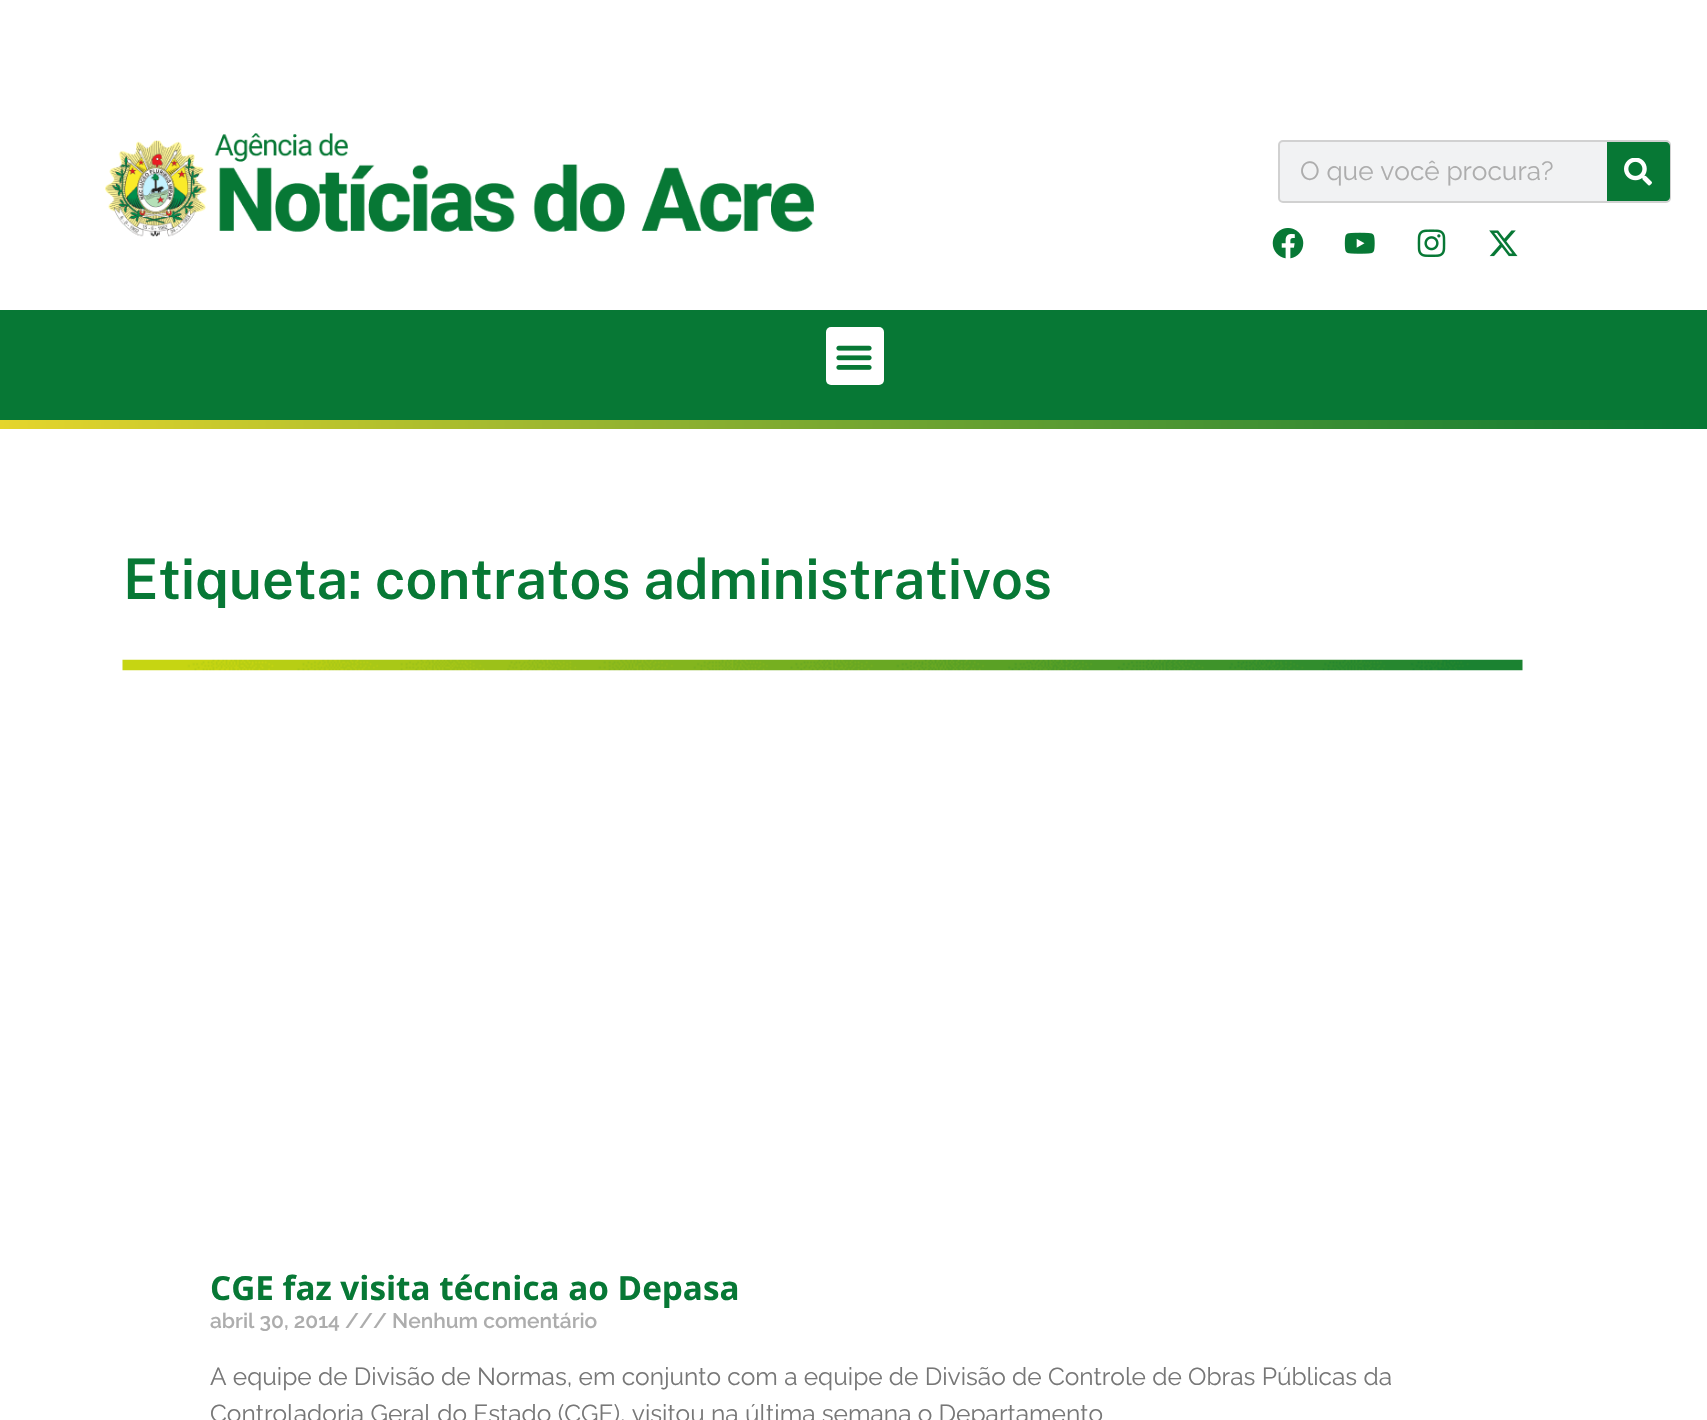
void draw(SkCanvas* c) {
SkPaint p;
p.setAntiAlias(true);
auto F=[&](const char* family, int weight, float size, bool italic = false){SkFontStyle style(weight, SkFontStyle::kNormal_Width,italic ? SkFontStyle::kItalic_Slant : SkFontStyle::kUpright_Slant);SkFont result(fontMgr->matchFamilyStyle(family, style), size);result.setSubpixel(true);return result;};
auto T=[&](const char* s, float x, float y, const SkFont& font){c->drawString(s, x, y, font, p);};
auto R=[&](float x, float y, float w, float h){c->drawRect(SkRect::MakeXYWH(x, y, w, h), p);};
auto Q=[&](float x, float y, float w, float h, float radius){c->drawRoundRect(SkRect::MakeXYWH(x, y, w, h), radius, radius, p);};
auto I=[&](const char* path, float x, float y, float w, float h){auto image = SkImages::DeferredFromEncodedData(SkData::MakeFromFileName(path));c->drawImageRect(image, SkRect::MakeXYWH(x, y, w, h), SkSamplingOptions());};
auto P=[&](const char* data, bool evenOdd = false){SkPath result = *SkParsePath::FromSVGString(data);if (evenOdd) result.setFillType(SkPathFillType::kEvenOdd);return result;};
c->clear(0xffffffff);
I("1.png",105,133,709,104);
p.setColor(0xfff1f2f3);
c->drawRoundRect(SkRect::MakeXYWH(1279,141,391,61),4,4,p);
p.setStroke(true);
p.setStrokeWidth(2);
p.setColor(0xffd1d1d1);
c->drawRoundRect(SkRect::MakeXYWH(1279,141,391,61),4,4,p);
auto f1 = F("Raleway",400,26.25);
p.setStroke(false);
p.setColor(0xffadadad);
T("O que você procura?",1300,180,f1);
p.setColor(0xff077835);
c->drawPath(P("M1607 142h59c2 0 4 2 4 4v51c0 2-2 4-4 4h-59z"),p);
I("2.png",1624,158,28,28);
I("3.png",1272,228,32,31);
I("4.png",1344,232,31,22);
I("5.png",1417,229,29,28);
I("6.png",1489,230,29,27);
R(0,310,1707,110);
p.setColor(0xffffffff);
Q(826,327,58,58,5);
I("7.png",836,345,36,25);
{
const SkColor colors[] = {0xff077835,0xffe5d52c};
const float stops[] = {0,1};
const SkPoint ends[] = {{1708,424}, {0,424}};
p.setShader(SkGradientShader::MakeLinear(ends, colors, stops, 2, SkTileMode::kClamp));
p.setAlpha(255);
}
R(0,420,1707,9);
auto f2 = F("Public Sans",600,56);
p.setShader(nullptr);
p.setColor(0xff077835);
T("Etiqueta: contratos administrativos",123,599,f2);
I("8.png",122,659,1401,12);
auto f3 = F("Open Sans",700,33.25);
T("CGE faz visita técnica ao Depasa",210,1300,f3);
auto f4 = F("Raleway",600,21);
p.setColor(0xffadadad);
T("abril 30, 2014 /// Nenhum comentário",210,1328,f4);
auto f5 = F("Raleway",400,24.5);
p.setColor(0xff777777);
T("A equipe de Divisão de Normas, em conjunto com a equipe de Divisão de Controle de Obras Públicas da",210,1385,f5);
T("Controladoria Geral do Estado (CGE), visitou na última semana o Departamento",210,1422,f5);
}
